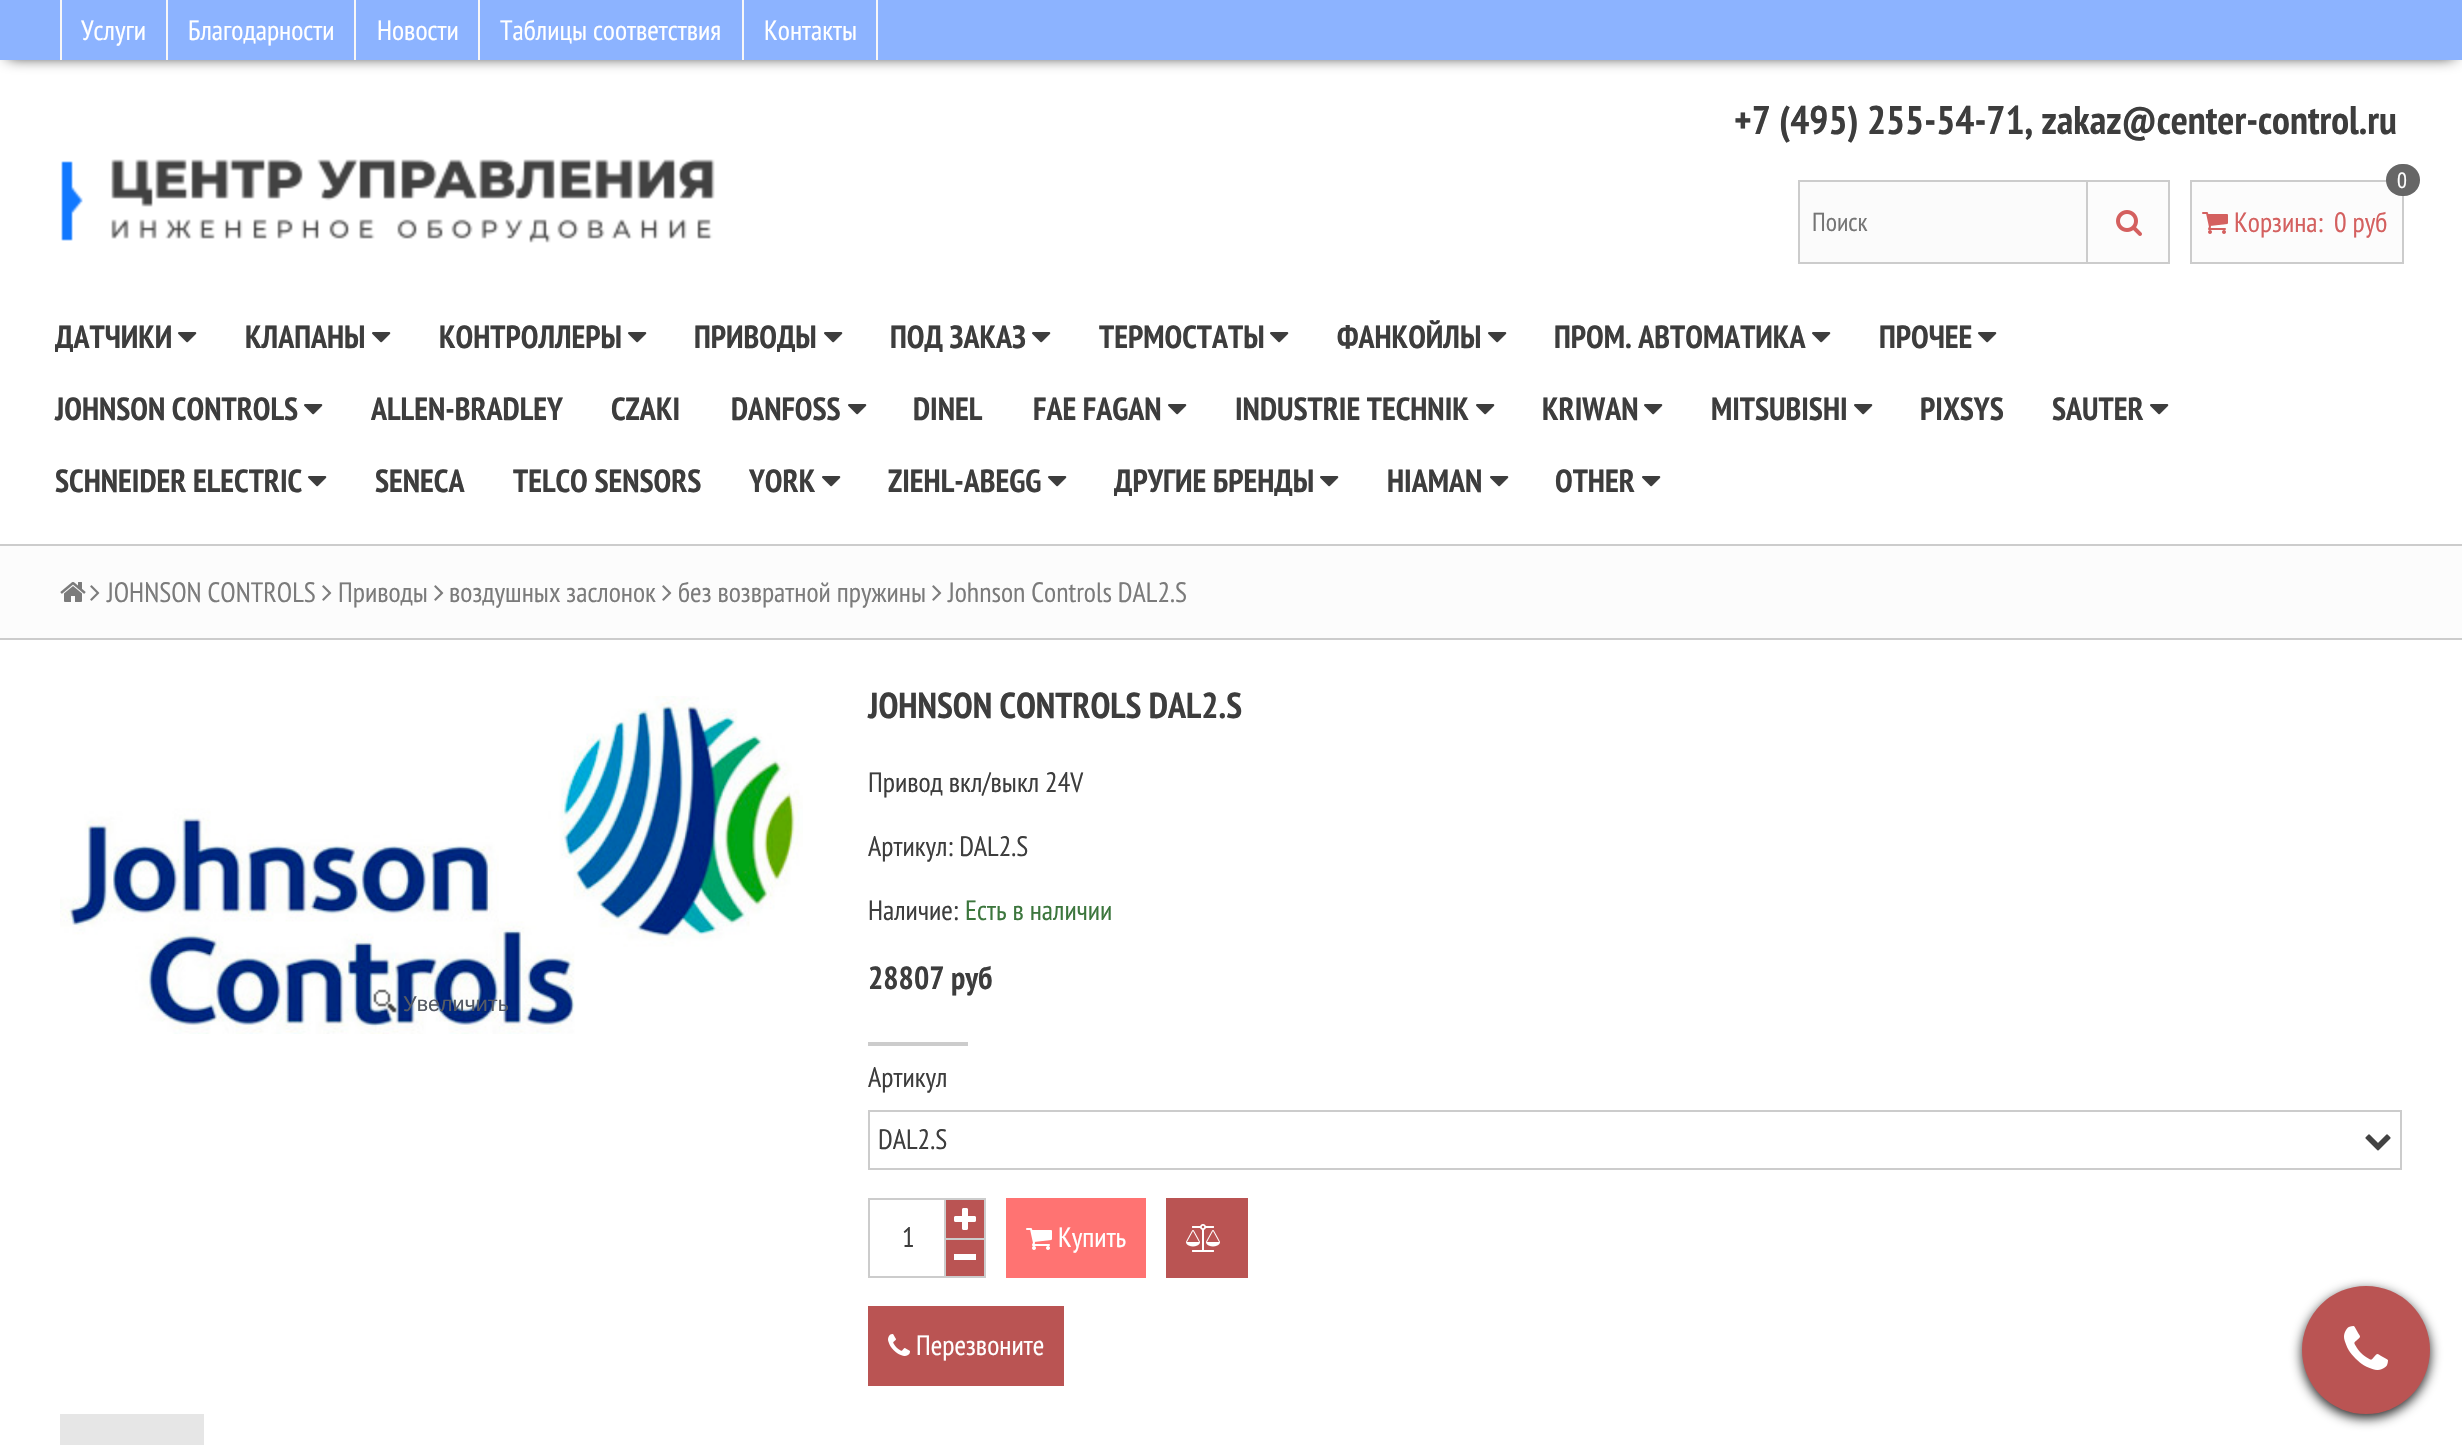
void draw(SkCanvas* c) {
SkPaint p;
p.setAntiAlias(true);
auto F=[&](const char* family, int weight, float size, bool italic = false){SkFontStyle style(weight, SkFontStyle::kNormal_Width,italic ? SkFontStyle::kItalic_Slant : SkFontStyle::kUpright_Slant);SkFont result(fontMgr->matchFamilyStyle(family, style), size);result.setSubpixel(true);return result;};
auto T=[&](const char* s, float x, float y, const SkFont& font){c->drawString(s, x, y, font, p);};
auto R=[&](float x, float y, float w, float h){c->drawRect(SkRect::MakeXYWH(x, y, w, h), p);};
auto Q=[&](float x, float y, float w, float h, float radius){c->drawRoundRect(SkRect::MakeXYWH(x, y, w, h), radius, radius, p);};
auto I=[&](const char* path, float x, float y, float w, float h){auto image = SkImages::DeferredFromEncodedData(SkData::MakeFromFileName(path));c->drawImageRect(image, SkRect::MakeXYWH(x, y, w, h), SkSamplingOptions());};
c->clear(0xffffffff);
p.setColor(0xff000000);
p.setMaskFilter(SkMaskFilter::MakeBlur(kNormal_SkBlurStyle, 8));
c->drawRect(SkRect::MakeXYWH(8,12,2446,44),p);
p.setMaskFilter(nullptr);
p.setColor(0xff8cb3ff);
R(0,0,2462,60);
p.setColor(0xfff7f7f7);
R(166,0,2,60);
R(60,0,2,60);
auto f1 = F("PT Sans Narrow",400,28);
p.setColor(0xffffffff);
T("Услуги",81,40,f1);
p.setColor(0xfff7f7f7);
R(354,0,2,60);
p.setColor(0xffffffff);
T("Благодарности",188,40,f1);
p.setColor(0xfff7f7f7);
R(478,0,2,60);
p.setColor(0xffffffff);
T("Новости",377,40,f1);
p.setColor(0xfff7f7f7);
R(742,0,2,60);
p.setColor(0xffffffff);
T("Таблицы соответствия",500,40,f1);
p.setColor(0xfff7f7f7);
R(876,0,2,60);
p.setColor(0xffffffff);
T("Контакты",764,40,f1);
auto f2 = F("PT Sans Narrow",700,40);
p.setColor(0xff3d3d3d);
T("+7 (495) 255-54-71, zakaz@center-control.ru",1734,134,f2);
I("1.png",61,159,654,84);
p.setColor(0xfffbfbfb);
R(1800,182,286,80);
p.setColor(0xffcccccc);
R(1798,180,288,2);
R(1798,262,288,2);
R(1798,180,2,84);
auto f3 = F("PT Sans Narrow",400,26);
p.setColor(0xff757575);
T("Поиск",1812,231,f3);
p.setColor(0xfffcfcfc);
c->drawRect(SkRect::MakeXYWH(2087,181,82,82),p);
p.setStroke(true);
p.setStrokeWidth(2);
p.setColor(0xffcccccc);
c->drawRect(SkRect::MakeXYWH(2087,181,82,82),p);
I("2.png",2116,210,26,26);
p.setStroke(false);
p.setColor(0xfffcfcfc);
c->drawRect(SkRect::MakeXYWH(2191,181,212,82),p);
p.setStroke(true);
p.setColor(0xffcccccc);
c->drawRect(SkRect::MakeXYWH(2191,181,212,82),p);
I("3.png",2202,212,26,22);
p.setStroke(false);
p.setColor(0xffd4605f);
T("Корзина:",2234,232,f1);
p.setColor(0xff666666);
Q(2386,164,34,32,16);
auto f4 = F("PT Sans Narrow",400,22);
p.setColor(0xffffffff);
T("0",2397,188,f4);
p.setColor(0xffd4605f);
T("0 руб",2334,232,f1);
auto f5 = F("PT Sans Narrow",700,32);
p.setColor(0xff3d3d3d);
T("ДАТЧИКИ",55,348,f5);
I("4.png",178,332,19,11);
T("КЛАПАНЫ",245,348,f5);
I("4.png",372,332,19,11);
T("КОНТРОЛЛЕРЫ",439,348,f5);
I("4.png",628,332,19,11);
T("ПРИВОДЫ",694,348,f5);
I("4.png",824,332,19,11);
T("ПОД ЗАКАЗ",890,348,f5);
I("4.png",1032,332,19,11);
T("ТЕРМОСТАТЫ",1099,348,f5);
I("4.png",1270,332,19,11);
T("ФАНКОЙЛЫ",1337,348,f5);
I("4.png",1488,332,19,11);
T("ПРОМ. АВТОМАТИКА",1554,348,f5);
I("4.png",1812,332,19,11);
T("ПРОЧЕЕ",1879,348,f5);
I("4.png",1978,332,19,11);
T("JOHNSON CONTROLS",55,420,f5);
I("4.png",304,404,19,11);
T("ALLEN-BRADLEY",371,420,f5);
T("CZAKI",611,420,f5);
T("DANFOSS",731,420,f5);
I("4.png",848,404,19,11);
T("DINEL",913,420,f5);
T("FAE FAGAN",1033,420,f5);
I("4.png",1168,404,19,11);
T("INDUSTRIE TECHNIK",1235,420,f5);
I("4.png",1476,404,19,11);
T("KRIWAN",1542,420,f5);
I("4.png",1644,404,19,11);
T("MITSUBISHI",1711,420,f5);
I("4.png",1854,404,19,11);
T("PIXSYS",1920,420,f5);
T("SAUTER",2052,420,f5);
I("4.png",2150,404,19,11);
T("SCHNEIDER ELECTRIC",55,492,f5);
I("4.png",308,476,19,11);
T("SENECA",375,492,f5);
T("TELCO SENSORS",513,492,f5);
T("YORK",749,492,f5);
I("4.png",822,476,19,11);
T("ZIEHL-ABEGG",888,492,f5);
I("4.png",1048,476,19,11);
T("ДРУГИЕ БРЕНДЫ",1114,492,f5);
I("4.png",1320,476,19,11);
T("HIAMAN",1387,492,f5);
I("4.png",1490,476,19,11);
T("OTHER",1555,492,f5);
I("4.png",1642,476,19,11);
p.setColor(0xfffcfcfc);
R(0,546,2462,92);
p.setColor(0xffcccccc);
R(0,544,2462,2);
R(0,638,2462,2);
I("5.png",60,582,26,20);
I("6.png",90,585,10,16);
p.setColor(0xff7b7b7b);
T("JOHNSON CONTROLS",107,602,f1);
I("6.png",322,585,10,16);
T("Приводы",338,602,f1);
I("6.png",434,585,10,16);
T("воздушных заслонок",449,602,f1);
I("6.png",662,585,10,16);
T("без возвратной пружины",678,602,f1);
I("6.png",932,585,10,16);
T("Johnson Controls DAL2.S",948,602,f1);
I("7.png",60,696,743,338);
I("8.png",373,989,24,24);
auto f6 = F("Liberation Sans",400,21.5);
p.setColor(0xff555a63);
T("Увеличить",403,1011,f6);
auto f7 = F("PT Sans Narrow",700,36);
p.setColor(0xff3d3d3d);
T("JOHNSON CONTROLS DAL2.S",868,718,f7);
T("Привод вкл/выкл 24V",868,792,f1);
T("Артикул: DAL2.S",868,856,f1);
T("Наличие:",868,920,f1);
p.setColor(0xff3c763d);
T("Есть в наличии",965,920,f1);
p.setColor(0xff3d3d3d);
T("28807 руб",868,989,f5);
p.setColor(0xffcccccc);
R(868,1042,100,4);
p.setColor(0xff3d3d3d);
T("Артикул",868,1087,f1);
p.setStroke(true);
p.setColor(0xffcccccc);
c->drawRect(SkRect::MakeXYWH(869,1111,1532,58),p);
p.setStroke(false);
p.setColor(0xff3d3d3d);
T("DAL2.S",878,1149,f1);
I("9.png",2365,1134,26,17);
p.setStroke(true);
p.setColor(0xffcccccc);
c->drawRect(SkRect::MakeXYWH(869,1199,78,78),p);
p.setStroke(false);
p.setColor(0xff3d3d3d);
T("1",902,1247,f1);
p.setColor(0xffba5453);
R(946,1240,38,36);
p.setStroke(true);
p.setColor(0xffcccccc);
c->drawRect(SkRect::MakeXYWH(945,1237,40,40),p);
p.setStroke(false);
p.setColor(0xffba5453);
c->drawRect(SkRect::MakeXYWH(945,1199,40,40),p);
p.setStroke(true);
p.setColor(0xffcccccc);
c->drawRect(SkRect::MakeXYWH(945,1199,40,40),p);
I("10.png",954,1208,22,22);
p.setStroke(false);
p.setColor(0xffffffff);
R(954,1254,22,6);
p.setColor(0xffff7372);
R(1006,1198,140,80);
I("11.png",1026,1228,26,22);
p.setColor(0xffffffff);
T("Купить",1058,1247,f1);
p.setColor(0xffba5453);
R(1166,1198,82,80);
I("12.png",1186,1224,34,28);
R(868,1306,196,80);
I("13.png",888,1334,22,22);
p.setColor(0xffffffff);
T("Перезвоните",916,1355,f1);
p.setColor(0xffe6e6e6);
R(60,1414,144,31);
p.setColor(0xff222222);
p.setMaskFilter(SkMaskFilter::MakeBlur(kNormal_SkBlurStyle, 6));
c->drawRoundRect(SkRect::MakeXYWH(2302,1290,128,128),64,64,p);
p.setMaskFilter(nullptr);
p.setColor(0xffba5453);
c->drawCircle(2366,1350,64,p);
I("14.png",2344,1326,44,44);
}
